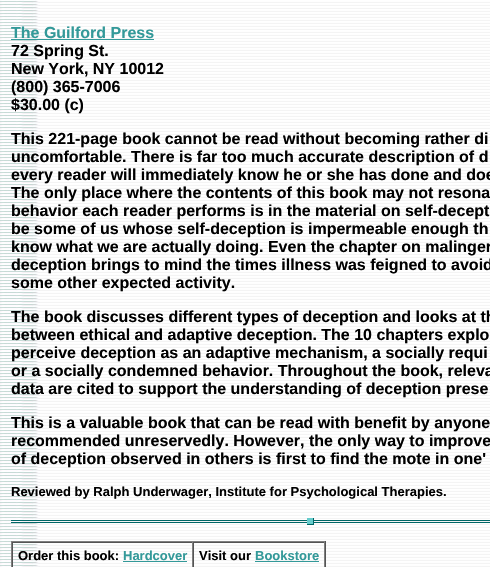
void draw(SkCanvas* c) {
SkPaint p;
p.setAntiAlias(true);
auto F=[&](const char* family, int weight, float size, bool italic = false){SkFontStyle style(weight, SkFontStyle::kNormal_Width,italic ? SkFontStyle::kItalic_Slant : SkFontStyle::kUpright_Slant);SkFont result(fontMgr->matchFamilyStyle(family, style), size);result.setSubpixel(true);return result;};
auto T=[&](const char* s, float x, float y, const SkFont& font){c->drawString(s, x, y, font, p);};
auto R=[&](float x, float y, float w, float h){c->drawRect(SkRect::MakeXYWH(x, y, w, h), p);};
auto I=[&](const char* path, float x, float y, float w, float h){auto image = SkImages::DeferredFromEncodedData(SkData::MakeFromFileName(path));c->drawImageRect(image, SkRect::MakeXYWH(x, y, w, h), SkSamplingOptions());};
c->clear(0xffffffff);
I("1.png",0,0,490,567);
auto f1 = F("Liberation Sans",700,16);
p.setColor(0xff339999);
T("The Guilford Press",11,38,f1);
R(11,39,143,1);
p.setColor(0xff000000);
T("72 Spring St.",11,56,f1);
T("New York, NY 10012",11,74,f1);
T("(800) 365-7006",11,92,f1);
T("$30.00 (c)",11,110,f1);
T("This 221-page book cannot be read without becoming rather di",11,144,f1);
T("uncomfortable. There is far too much accurate description of d",11,162,f1);
T("every reader will immediately know he or she has done and doe",11,180,f1);
T("The only place where the contents of this book may not resona",11,198,f1);
T("behavior each reader performs is in the material on self-decept",11,216,f1);
T("be some of us whose self-deception is impermeable enough th",11,234,f1);
T("know what we are actually doing. Even the chapter on malinger",11,252,f1);
T("deception brings to mind the times illness was feigned to avoid",11,270,f1);
T("some other expected activity.",11,288,f1);
T("The book discusses different types of deception and looks at th",11,322,f1);
T("between ethical and adaptive deception. The 10 chapters explo",11,340,f1);
T("perceive deception as an adaptive mechanism, a socially requi",11,358,f1);
T("or a socially condemned behavior. Throughout the book, releva",11,376,f1);
T("data are cited to support the understanding of deception prese",11,394,f1);
T("This is a valuable book that can be read with benefit by anyone",11,428,f1);
T("recommended unreservedly. However, the only way to improve",11,446,f1);
T("of deception observed in others is first to find the mote in one'",11,464,f1);
auto f2 = F("Liberation Sans",700,13);
T("Reviewed by Ralph Underwager, Institute for Psychological Therapies.",11,496,f2);
I("2.png",11,518,479,7);
p.setColor(0xff808080);
R(11,541,315,1);
p.setColor(0xff555555);
R(325,541,1,26);
p.setColor(0xff808080);
R(11,541,1,26);
p.setColor(0xff555555);
R(12,542,313,1);
p.setColor(0xff808080);
R(192,542,1,25);
p.setColor(0xff555555);
R(12,542,1,25);
p.setColor(0xff000000);
T("Order this book:",18,560,f2);
p.setColor(0xff339999);
T("Hardcover",123,560,f2);
R(123,561,64,1);
p.setColor(0xff808080);
R(324,542,1,25);
p.setColor(0xff555555);
R(193,542,1,25);
p.setColor(0xff000000);
T("Visit our",199,560,f2);
p.setColor(0xff339999);
T("Bookstore",255,560,f2);
R(255,561,64,1);
}
